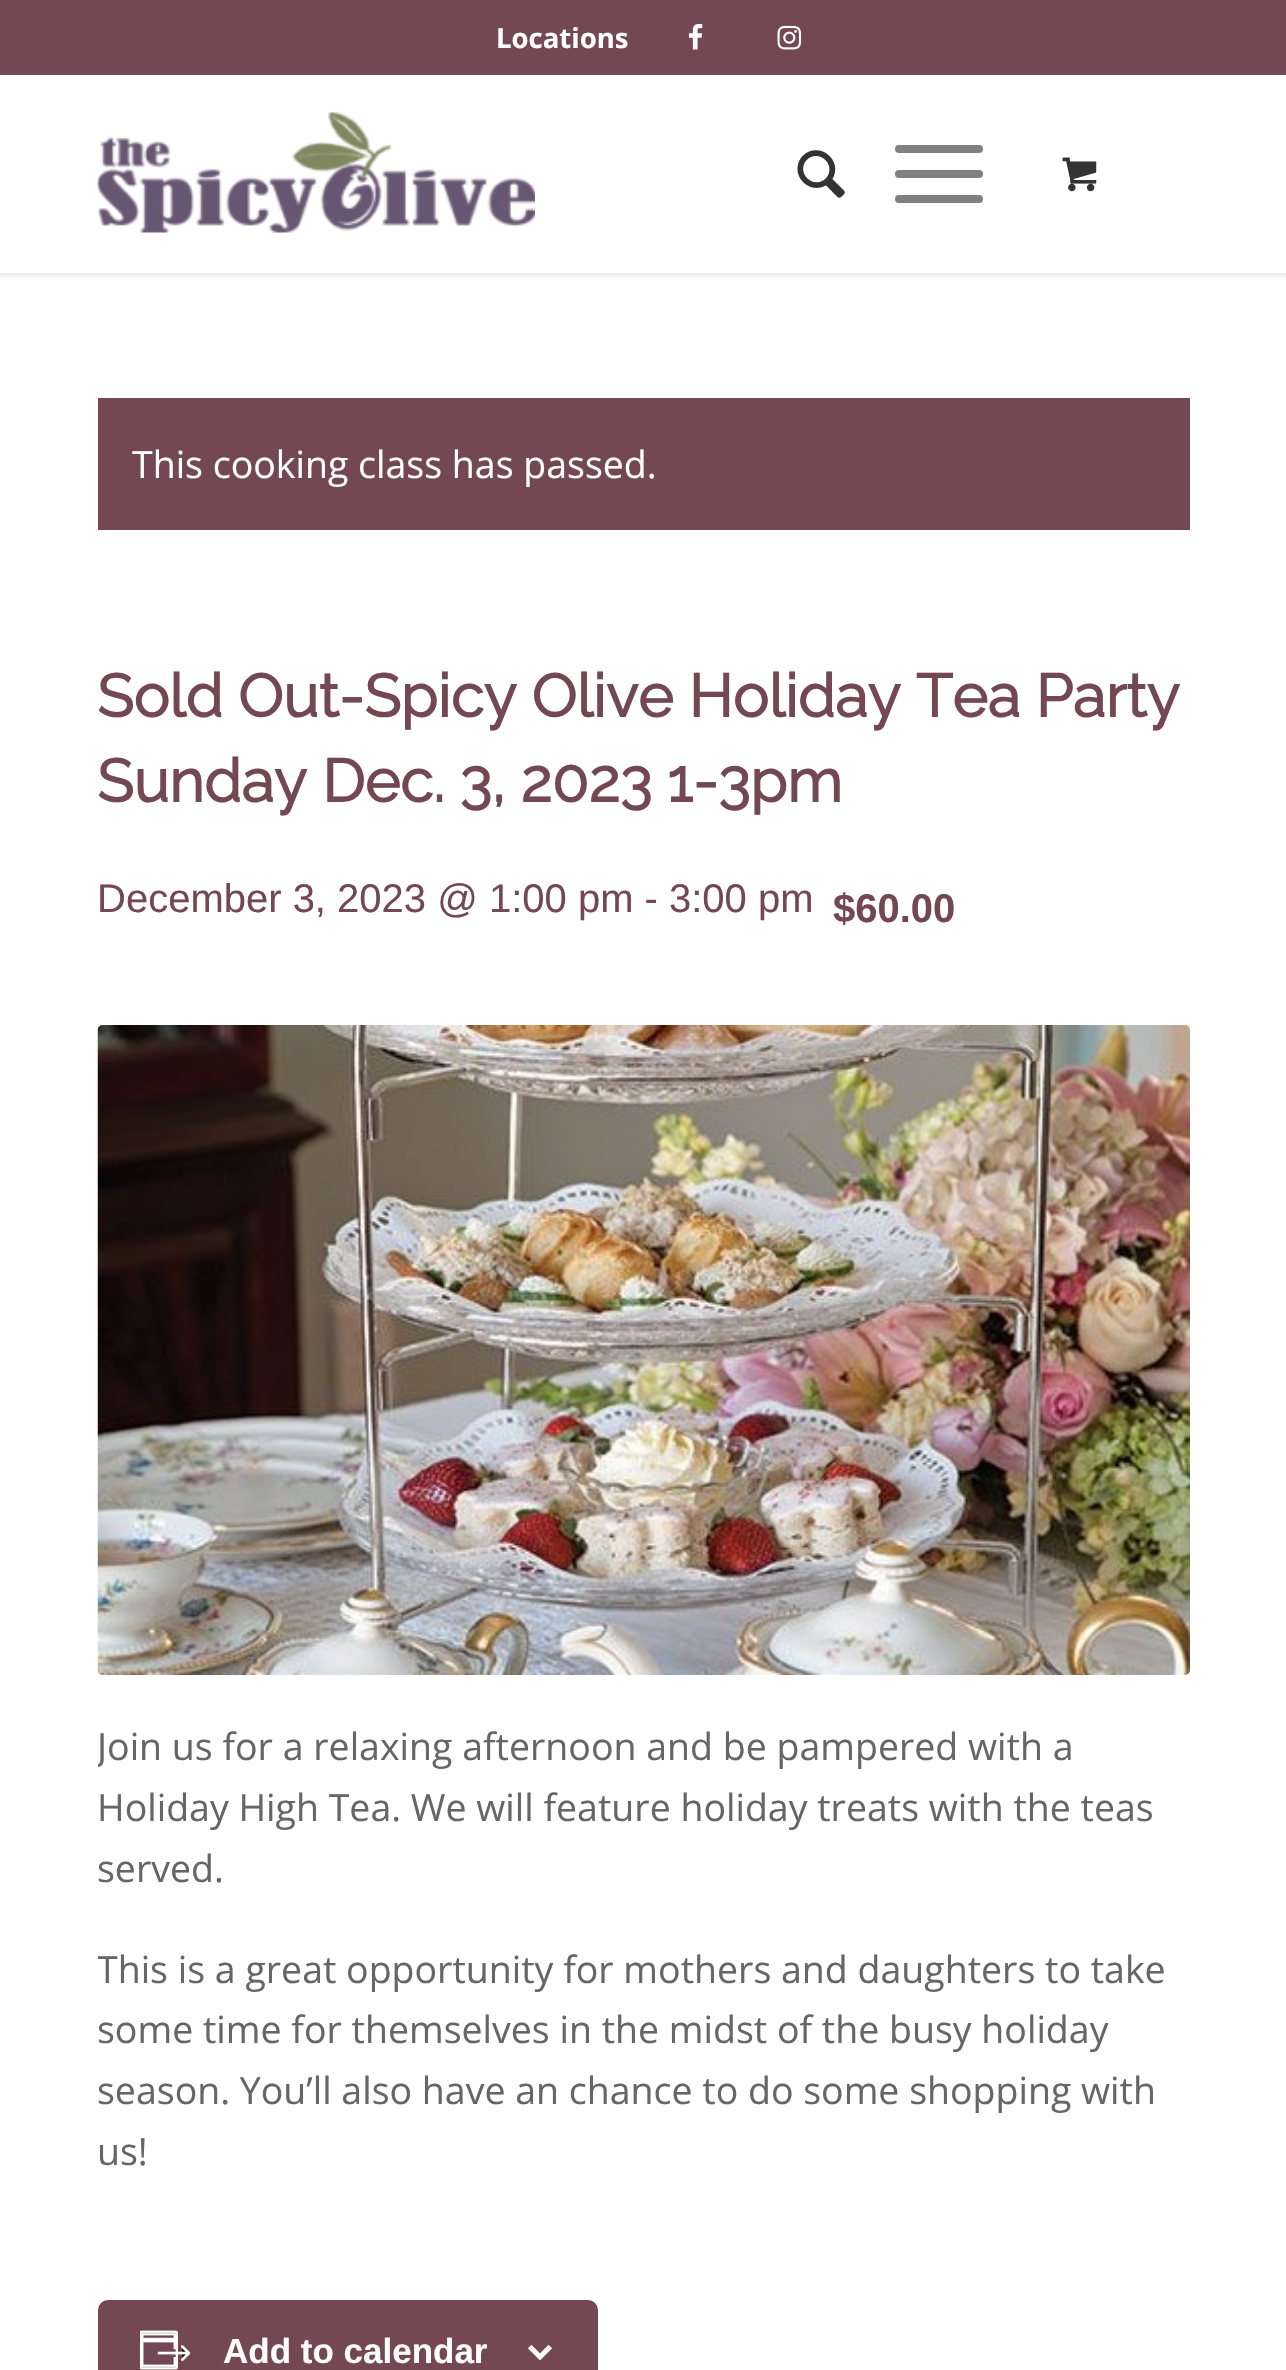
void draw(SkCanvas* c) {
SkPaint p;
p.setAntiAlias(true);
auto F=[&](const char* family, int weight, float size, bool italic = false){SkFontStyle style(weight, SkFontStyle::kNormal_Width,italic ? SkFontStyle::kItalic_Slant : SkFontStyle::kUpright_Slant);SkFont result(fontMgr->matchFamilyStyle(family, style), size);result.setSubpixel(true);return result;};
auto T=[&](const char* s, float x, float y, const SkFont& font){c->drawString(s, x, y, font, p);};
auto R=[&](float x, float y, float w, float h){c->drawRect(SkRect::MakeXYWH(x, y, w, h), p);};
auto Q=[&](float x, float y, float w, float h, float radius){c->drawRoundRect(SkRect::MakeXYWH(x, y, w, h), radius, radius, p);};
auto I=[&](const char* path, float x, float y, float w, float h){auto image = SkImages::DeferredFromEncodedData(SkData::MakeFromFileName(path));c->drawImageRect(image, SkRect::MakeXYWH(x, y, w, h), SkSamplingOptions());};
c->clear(0xffffffff);
p.setColor(0x1a000000);
p.setMaskFilter(SkMaskFilter::MakeBlur(kNormal_SkBlurStyle, 2.5));
c->drawRect(SkRect::MakeXYWH(-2,-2,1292,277),p);
p.setMaskFilter(nullptr);
p.setColor(0xff734854);
R(0,0,1286,75);
auto f1 = F("Open Sans",700,27.5);
p.setColor(0xffffffff);
T("Locations",496,48,f1);
I("1.png",688,23,15,27);
I("2.png",777,25,25,25);
R(0,75,1286,198);
I("3.png",97,112,438,121);
I("4.png",797,150,48,48);
p.setColor(0xff808080);
Q(895,170,88,8,4);
Q(895,145,88,8,4);
Q(895,195,88,8,4);
I("5.png",1062,157,35,35);
p.setColor(0xff734854);
R(98,398,1092,132);
auto f2 = F("Open Sans",400,37.5);
p.setColor(0xffffffff);
T("This cooking class has passed.",132,478,f2);
auto f3 = F("Raleway",700,60);
p.setColor(0xff734854);
T("Sold Out-Spicy Olive Holiday Tea Party",97,717,f3);
T("Sunday Dec. 3, 2023 1-3pm",97,802,f3);
auto f4 = F("Liberation Sans",400,40);
T("December 3, 2023 @ 1:00 pm - 3:00 pm",97,912,f4);
auto f5 = F("Liberation Sans",700,40);
T("$60.00",833,922,f5);
I("6.png",97,1025,1093,650);
c->save();
c->clipRect(SkRect::MakeXYWH(98,655,1092,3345));
p.setColor(0xff666666);
T("Join us for a relaxing afternoon and be pampered with a",97,1760,f2);
c->restore();
T("Holiday High Tea. We will feature holiday treats with the teas",97,1821,f2);
T("served.",97,1882,f2);
c->save();
c->clipRect(SkRect::MakeXYWH(98,655,1092,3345));
T("This is a great opportunity for mothers and daughters to take",97,1983,f2);
c->restore();
T("some time for themselves in the midst of the busy holiday",97,2043,f2);
T("season. You’ll also have an chance to do some shopping with",97,2104,f2);
T("us!",97,2165,f2);
p.setColor(0xff734854);
c->drawRoundRect(SkRect::MakeXYWH(99.5,2301.5,497,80),8.5,8.5,p);
p.setStroke(true);
p.setStrokeWidth(3);
c->drawRoundRect(SkRect::MakeXYWH(99.5,2301.5,497,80),8.5,8.5,p);
I("7.png",140,2330,51,40);
auto f6 = F("Liberation Sans",700,35);
p.setStroke(false);
p.setColor(0xffffffff);
T("Add to calendar",223,2363,f6);
I("8.png",528,2345,24,15);
}
